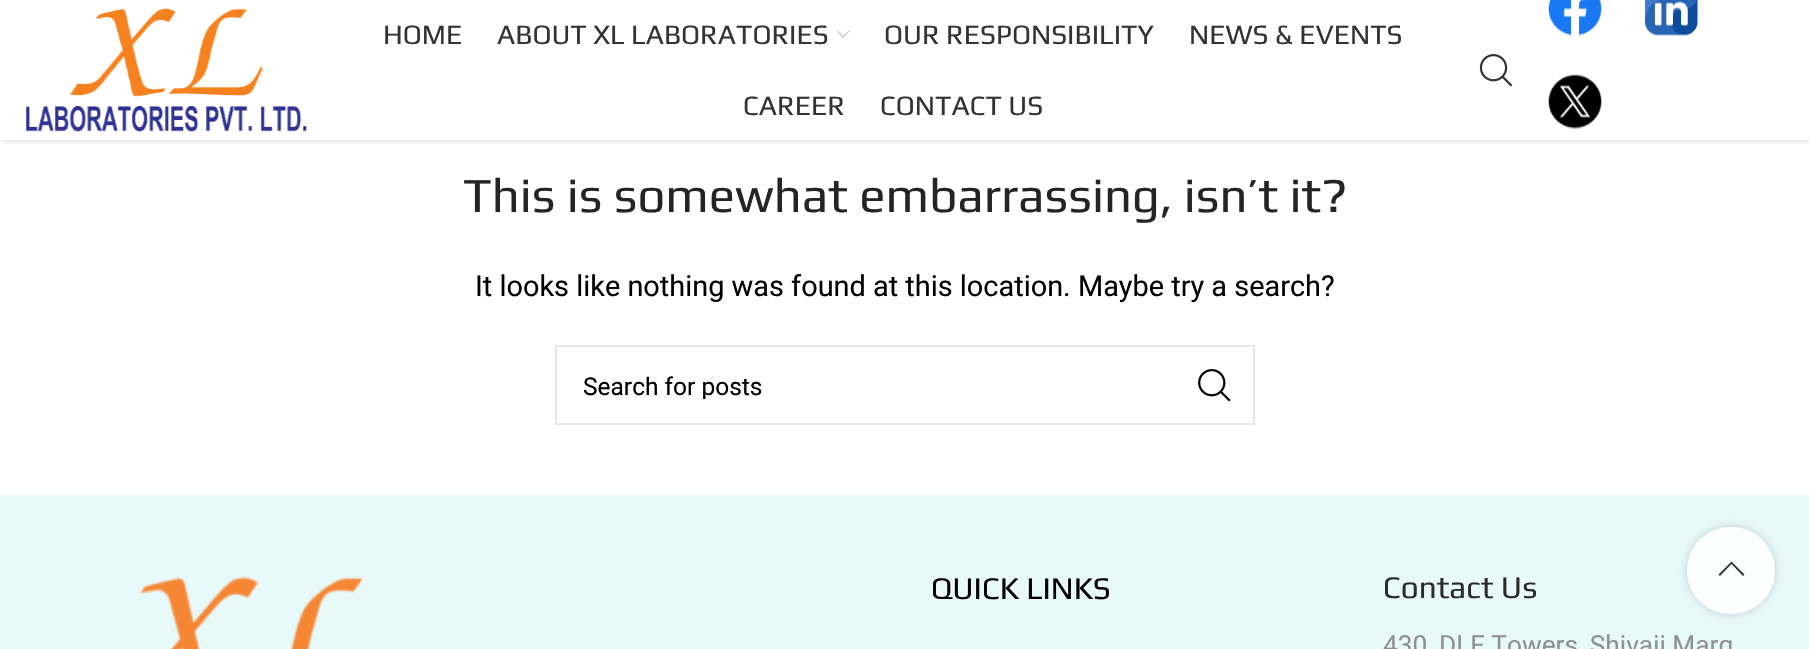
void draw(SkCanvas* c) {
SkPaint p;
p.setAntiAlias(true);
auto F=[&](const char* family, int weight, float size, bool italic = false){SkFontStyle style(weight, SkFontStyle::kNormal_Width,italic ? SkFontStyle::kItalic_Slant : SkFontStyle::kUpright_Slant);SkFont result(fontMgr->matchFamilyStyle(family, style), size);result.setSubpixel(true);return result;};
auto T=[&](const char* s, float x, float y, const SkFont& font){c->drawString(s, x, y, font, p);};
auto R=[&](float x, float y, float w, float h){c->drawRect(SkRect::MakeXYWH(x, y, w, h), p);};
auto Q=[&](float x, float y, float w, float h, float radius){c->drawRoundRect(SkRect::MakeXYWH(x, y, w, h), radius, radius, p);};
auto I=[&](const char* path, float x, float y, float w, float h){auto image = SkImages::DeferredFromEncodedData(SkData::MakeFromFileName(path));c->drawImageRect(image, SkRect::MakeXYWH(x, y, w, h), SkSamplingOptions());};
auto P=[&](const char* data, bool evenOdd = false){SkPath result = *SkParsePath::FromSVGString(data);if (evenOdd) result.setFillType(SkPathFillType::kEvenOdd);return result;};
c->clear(0xffffffff);
c->save();
c->clipRect(SkRect::MakeXYWH(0,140,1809,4));
p.setColor(0x1a000000);
p.setMaskFilter(SkMaskFilter::MakeBlur(kNormal_SkBlurStyle, 2.5));
c->drawRect(SkRect::MakeXYWH(0,2,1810,140),p);
p.setMaskFilter(nullptr);
c->restore();
I("1.png",26,8,281,124);
auto f1 = F("Play",400,28);
p.setColor(0xff333333);
T("HOME",383,44,f1);
T("ABOUT XL LABORATORIES",497,44,f1);
I("2.png",836,30,14,8);
T("OUR RESPONSIBILITY",884,44,f1);
T("NEWS & EVENTS",1189,44,f1);
T("CAREER",743,115,f1);
T("CONTACT US",880,115,f1);
I("3.png",1479,54,34,33);
I("4.png",1548,0,54,36);
I("5.png",1645,0,53,36);
I("6.png",1548,74,54,55);
auto f2 = F("Play",400,49);
p.setColor(0xff242424);
T("This is somewhat embarrassing, isn’t it?",463,212,f2);
auto f3 = F("Roboto",400,28.9);
p.setColor(0xff000000);
T("It looks like nothing was found at this location. Maybe try a search?",475,296,f3);
p.setStroke(true);
p.setStrokeWidth(2);
p.setColor(0xffe6e6e6);
c->drawRect(SkRect::MakeXYWH(556,346,698,78),p);
c->save();
c->clipRect(SkRect::MakeXYWH(583,371,590,28));
auto f4 = F("Roboto",400,24.5);
p.setStroke(false);
p.setColor(0xff000000);
T("Search for posts",583,395,f4);
c->restore();
I("7.png",1198,369,33,33);
p.setColor(0xffe8f9f9);
R(0,495,1809,154);
I("8.png",139,576,224,73);
auto f5 = F("Play",400,31.5);
p.setColor(0xff000000);
T("QUICK LINKS",931,599,f5);
p.setColor(0xff2b2b2b);
T("Contact Us",1383,598,f5);
auto f6 = F("Roboto",400,26.25);
p.setColor(0xff8e9191);
T("430, DLF Towers, Shivaji Marg",1383,654,f6);
c->save();
c->clipPath(P("M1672 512h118v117h-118zm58.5 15h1c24 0 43.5 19.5 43.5 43.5c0 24-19.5 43.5-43.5 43.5h-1c-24 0-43.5-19.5-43.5-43.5c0-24 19.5-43.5 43.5-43.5z",true),true);
p.setColor(0x2b000000);
p.setMaskFilter(SkMaskFilter::MakeBlur(kNormal_SkBlurStyle, 4.5));
c->drawRoundRect(SkRect::MakeXYWH(1687,527,88,87),43.5,43.5,p);
p.setMaskFilter(nullptr);
c->restore();
p.setColor(0xe6ffffff);
Q(1687,527,88,87,43.5);
p.setColor(0xff333333);
c->drawPath(P("M1743 576l1.5-1.5l-13-13l-13 13l1.5 1.5l11.5-12z"),p);
}
